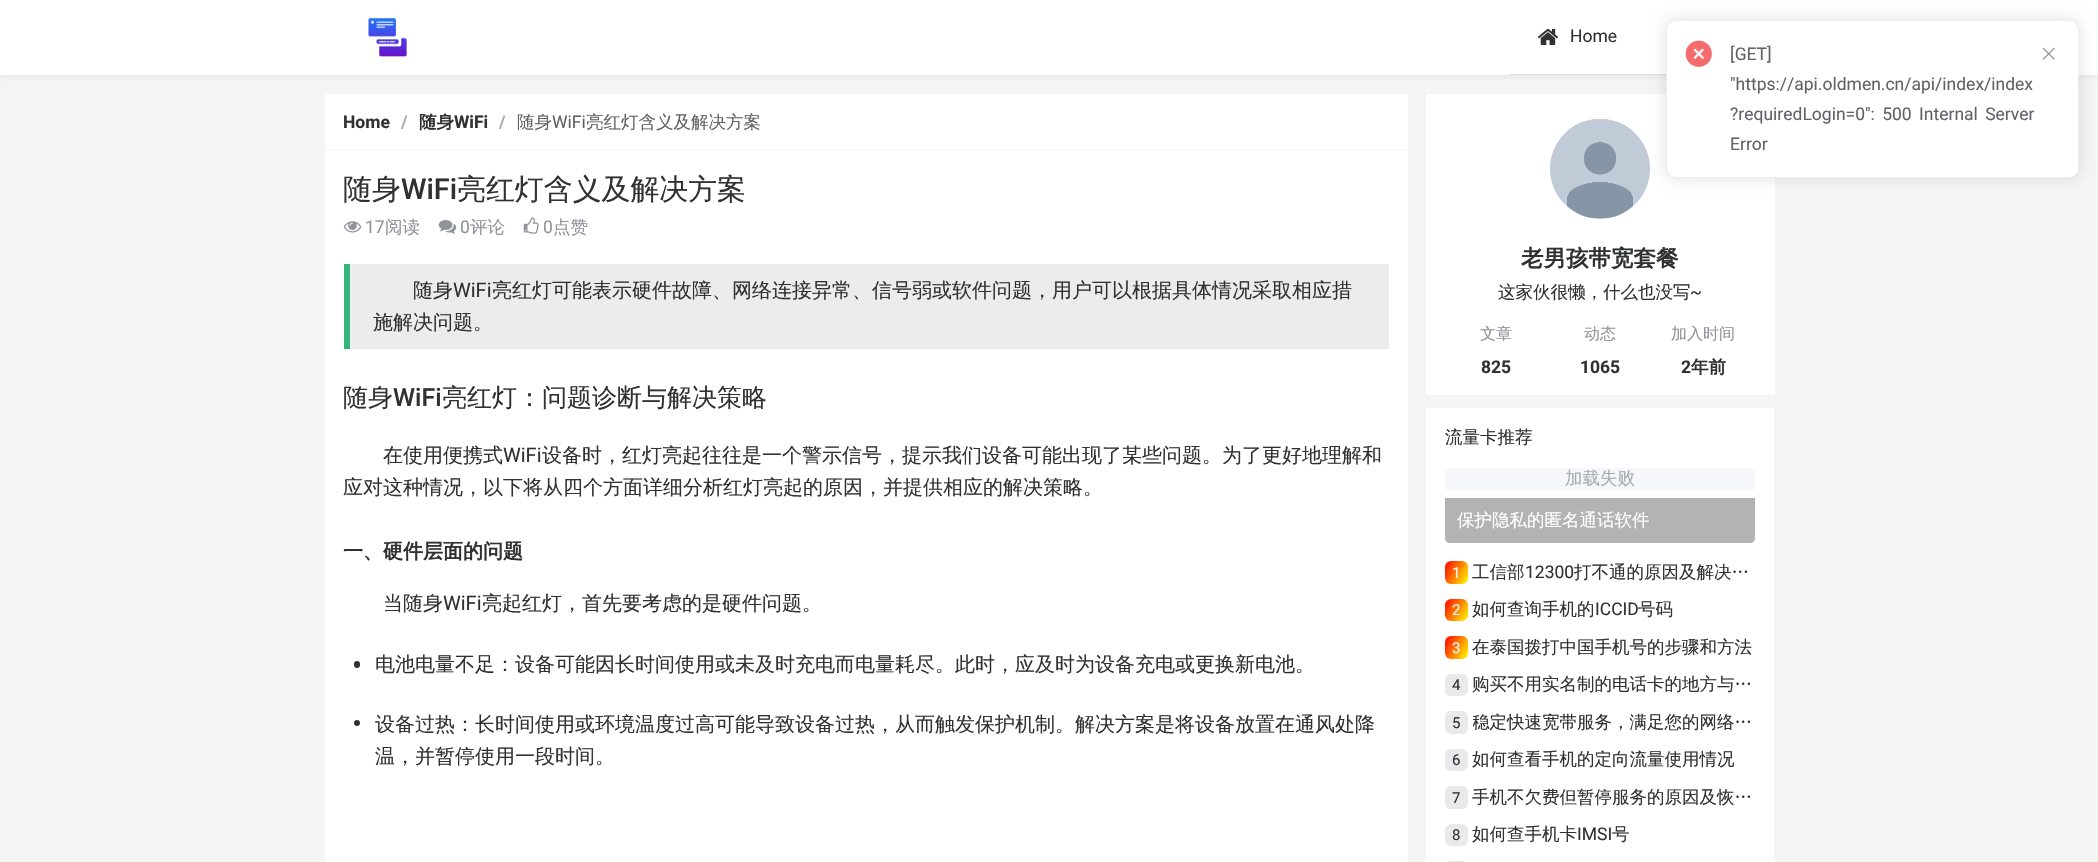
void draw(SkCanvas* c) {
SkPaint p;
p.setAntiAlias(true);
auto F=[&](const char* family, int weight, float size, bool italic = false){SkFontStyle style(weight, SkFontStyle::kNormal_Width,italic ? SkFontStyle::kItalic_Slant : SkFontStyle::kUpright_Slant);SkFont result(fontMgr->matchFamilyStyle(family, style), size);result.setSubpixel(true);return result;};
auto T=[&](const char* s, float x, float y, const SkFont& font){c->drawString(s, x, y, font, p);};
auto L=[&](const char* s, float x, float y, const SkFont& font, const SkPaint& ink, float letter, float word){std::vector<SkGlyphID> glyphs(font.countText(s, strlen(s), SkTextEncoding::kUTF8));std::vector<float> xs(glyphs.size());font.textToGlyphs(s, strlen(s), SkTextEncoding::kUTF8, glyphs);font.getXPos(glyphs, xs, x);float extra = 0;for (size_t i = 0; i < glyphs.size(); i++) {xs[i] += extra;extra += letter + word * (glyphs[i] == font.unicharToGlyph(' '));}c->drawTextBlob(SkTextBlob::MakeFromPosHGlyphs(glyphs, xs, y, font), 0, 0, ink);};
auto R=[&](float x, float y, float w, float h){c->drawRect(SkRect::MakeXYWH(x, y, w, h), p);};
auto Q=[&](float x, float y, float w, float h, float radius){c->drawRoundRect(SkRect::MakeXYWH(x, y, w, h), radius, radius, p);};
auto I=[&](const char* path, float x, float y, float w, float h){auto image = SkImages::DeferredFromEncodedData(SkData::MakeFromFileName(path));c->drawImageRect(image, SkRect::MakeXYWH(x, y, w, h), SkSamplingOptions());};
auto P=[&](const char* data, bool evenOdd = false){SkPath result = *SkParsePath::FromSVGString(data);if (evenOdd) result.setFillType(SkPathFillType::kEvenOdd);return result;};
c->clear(0xfff5f5f5);
p.setColor(0x14000000);
p.setMaskFilter(SkMaskFilter::MakeBlur(kNormal_SkBlurStyle, 5));
c->drawRect(SkRect::MakeXYWH(0,0,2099,75),p);
p.setMaskFilter(nullptr);
p.setColor(0xffffffff);
R(0,0,2098,75);
I("1.png",368,18,39,39);
p.setColor(0xffdcdfe6);
R(1509,74,157,1);
I("2.png",1537,28,21,17);
auto f1 = F("Roboto",400,17.5);
p.setColor(0xff303133);
T("Home",1570,42,f1);
p.setColor(0xffffffff);
R(325,94,1083,768);
p.setColor(0xfff2f6fc);
R(325,149,1083,1);
auto f2 = F("Roboto",700,17.5);
p.setColor(0xff303133);
T("Home",343,128,f2);
p.setColor(0xffa8abb2);
T("/",401,128,f2);
auto f3 = F("WenQuanYi Zen Hei",700,17.5);
p.setColor(0xff303133);
T("随身",419,128,f3);
T("WiFi",454,128,f2);
p.setColor(0xffa8abb2);
T("/",499,128,f2);
auto f4 = F("WenQuanYi Zen Hei",500,17.5);
p.setColor(0xff606266);
T("随身",517,128,f4);
T("WiFi",552,128,f1);
T("亮红灯含义及解决方案",586,128,f4);
auto f5 = F("WenQuanYi Zen Hei",500,28.9);
p.setColor(0xff303133);
T("随身",343,199,f5);
auto f6 = F("Roboto",500,28.9);
T("WiFi",401,199,f6);
T("亮红灯含义及解决方案",457,199,f5);
I("3.png",343,221,19,12);
p.setColor(0xff909399);
T("17",365,233,f1);
T("阅读",385,233,f4);
I("4.png",438,220,19,14);
T("0",460,233,f1);
T("评论",470,233,f4);
I("5.png",523,217,16,17);
T("0",543,233,f1);
T("点赞",553,233,f4);
p.setColor(0xffececec);
R(350,264,1039,85);
p.setColor(0xff35b378);
R(344,264,6,85);
auto f7 = F("WenQuanYi Zen Hei",500,20);
p.setColor(0xff303133);
T("随身",413,297,f7);
auto f8 = F("Roboto",400,20);
T("WiFi",453,297,f8);
T("亮红灯可能表示硬件故障、网络连接异常、信号弱或软件问题，用户可以根据具体情况采取相应措",492,297,f7);
T("施解决问题。",373,329,f7);
auto f9 = F("WenQuanYi Zen Hei",500,25);
T("随身",343,406,f9);
auto f10 = F("Roboto",500,25);
T("WiFi",393,406,f10);
T("亮红灯：问题诊断与解决策略",442,406,f9);
T("在使用便携式",383,462,f7);
T("WiFi",503,462,f8);
T("设备时，红灯亮起往往是一个警示信号，提示我们设备可能出现了某些问题。为了更好地理解和",542,462,f7);
T("应对这种情况，以下将从四个方面详细分析红灯亮起的原因，并提供相应的解决策略。",343,494,f7);
auto f11 = F("WenQuanYi Zen Hei",700,20);
T("一、硬件层面的问题",343,558,f11);
T("当随身",383,610,f7);
T("WiFi",443,610,f8);
T("亮起红灯，首先要考虑的是硬件问题。",482,610,f7);
Q(354,661,6,7,3);
T("电池电量不足：设备可能因长时间使用或未及时充电而电量耗尽。此时，应及时为设备充电或更换新电池。",375,671,f7);
c->drawCircle(357,723,3,p);
T("设备过热：长时间使用或环境温度过高可能导致设备过热，从而触发保护机制。解决方案是将设备放置在通风处降",375,731,f7);
T("温，并暂停使用一段时间。",375,763,f7);
p.setColor(0xffffffff);
R(1426,94,349,301);
I("6.png",1550,119,100,100);
auto f12 = F("WenQuanYi Zen Hei",700,22.5);
p.setColor(0xff303133);
T("老男孩带宽套餐",1521,266,f12);
T("这家伙很懒，什么也没写",1498,298,f4);
T("~",1690,298,f1);
auto f13 = F("WenQuanYi Zen Hei",500,16);
p.setColor(0xff909399);
T("文章",1480,339,f13);
p.setColor(0xff303133);
T("825",1481,373,f2);
p.setColor(0xff909399);
T("动态",1584,339,f13);
p.setColor(0xff303133);
T("1065",1580,373,f2);
p.setColor(0xff909399);
T("加入时间",1671,339,f13);
p.setColor(0xff303133);
T("2",1681,373,f2);
T("年前",1691,373,f3);
p.setColor(0xffffffff);
R(1426,408,348,454);
p.setColor(0xff303133);
T("流量卡推荐",1445,443,f4);
p.setColor(0xfff5f7fa);
c->drawPath(P("M1450 468h300c3 0 5 2 5 5v17h-310v-17c0-3 2-5 5-5z"),p);
p.setColor(0xffa8abb2);
T("加载失败",1565,484,f4);
p.setColor(0xffb3b3b3);
c->drawPath(P("M1445 498h310v40c0 3-2 5-5 5h-300c-3 0-5-2-5-5z"),p);
p.setColor(0xffffffff);
T("保护隐私的匿名通话软件",1457,526,f4);
{
const SkColor colors[] = {0xffff0000,0xffffff00};
const float stops[] = {0,1};
const SkPoint ends[] = {{1443,565}, {1470,580}};
p.setShader(SkGradientShader::MakeLinear(ends, colors, stops, 2, SkTileMode::kClamp));
p.setAlpha(255);
}
Q(1445,561,23,23,6);
auto f14 = F("Roboto",400,15);
p.setShader(nullptr);
p.setColor(0xffecf5ff);
T("1",1452,578,f14);
p.setColor(0xff303133);
T("工信部",1472,578,f4);
T("12300",1525,578,f1);
T("打不通的原因及解决…",1574,578,f4);
{
const SkColor colors[] = {0xffff0000,0xffffff00};
const float stops[] = {0,1};
const SkPoint ends[] = {{1443,602}, {1470,618}};
p.setShader(SkGradientShader::MakeLinear(ends, colors, stops, 2, SkTileMode::kClamp));
p.setAlpha(255);
}
Q(1445,599,23,22,6);
p.setShader(nullptr);
p.setColor(0xffecf5ff);
T("2",1452,615,f14);
p.setColor(0xff303133);
T("如何查询手机的",1472,615,f4);
T("ICCID",1595,615,f1);
T("号码",1638,615,f4);
{
const SkColor colors[] = {0xffff0000,0xffffff00};
const float stops[] = {0,1};
const SkPoint ends[] = {{1443,640}, {1470,655}};
p.setShader(SkGradientShader::MakeLinear(ends, colors, stops, 2, SkTileMode::kClamp));
p.setAlpha(255);
}
Q(1445,636,23,23,6);
p.setShader(nullptr);
p.setColor(0xffecf5ff);
T("3",1452,653,f14);
p.setColor(0xff303133);
T("在泰国拨打中国手机号的步骤和方法",1472,653,f4);
p.setColor(0xffe9e9eb);
Q(1445,674,23,22,6);
p.setColor(0xff303133);
T("4",1452,690,f14);
T("购买不用实名制的电话卡的地方与…",1472,690,f4);
p.setColor(0xffe9e9eb);
Q(1445,711,23,23,6);
p.setColor(0xff303133);
T("5",1452,728,f14);
c->save();
c->clipRect(SkRect::MakeXYWH(1473,711,282,23));
T("稳定快速宽带服务，满足您的网络…",1472,728,f4);
c->restore();
p.setColor(0xffe9e9eb);
Q(1445,749,23,22,6);
p.setColor(0xff303133);
T("6",1452,765,f14);
T("如何查看手机的定向流量使用情况",1472,765,f4);
p.setColor(0xffe9e9eb);
Q(1445,786,23,23,6);
p.setColor(0xff303133);
T("7",1452,803,f14);
T("手机不欠费但暂停服务的原因及恢…",1472,803,f4);
p.setColor(0xffe9e9eb);
Q(1445,824,23,22,6);
p.setColor(0xff303133);
T("8",1452,840,f14);
T("如何查手机卡",1472,840,f4);
T("IMSI",1577,840,f1);
T("号",1612,840,f4);
p.setColor(0xffe9e9eb);
c->drawPath(P("M1451 861h11c3.5 0 6 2.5 6 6v-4h-23v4c0-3.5 2.5-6 6-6z"),p);
p.setColor(0x1f000000);
p.setMaskFilter(SkMaskFilter::MakeBlur(kNormal_SkBlurStyle, 7.5));
c->drawRoundRect(SkRect::MakeXYWH(1666,20,413,158),10,10,p);
p.setMaskFilter(nullptr);
p.setColor(0xffffffff);
c->drawRoundRect(SkRect::MakeXYWH(1666.5,20.5,412,157),9.5,9.5,p);
p.setStroke(true);
p.setStrokeWidth(1);
p.setColor(0xffebeef5);
c->drawRoundRect(SkRect::MakeXYWH(1666.5,20.5,412,157),9.5,9.5,p);
I("7.png",1685,40,27,27);
p.setStroke(false);
p.setColor(0xff606266);
T("[GET]",1730,60,f1);
T("\"https://api.oldmen.cn/api/index/index",1730,90,f1);
L("?requiredLogin=0\": 500 Internal Server",1730,120,f1,p,0,3);
T("Error",1730,150,f1);
I("8.png",2042,47,13,13);
}
